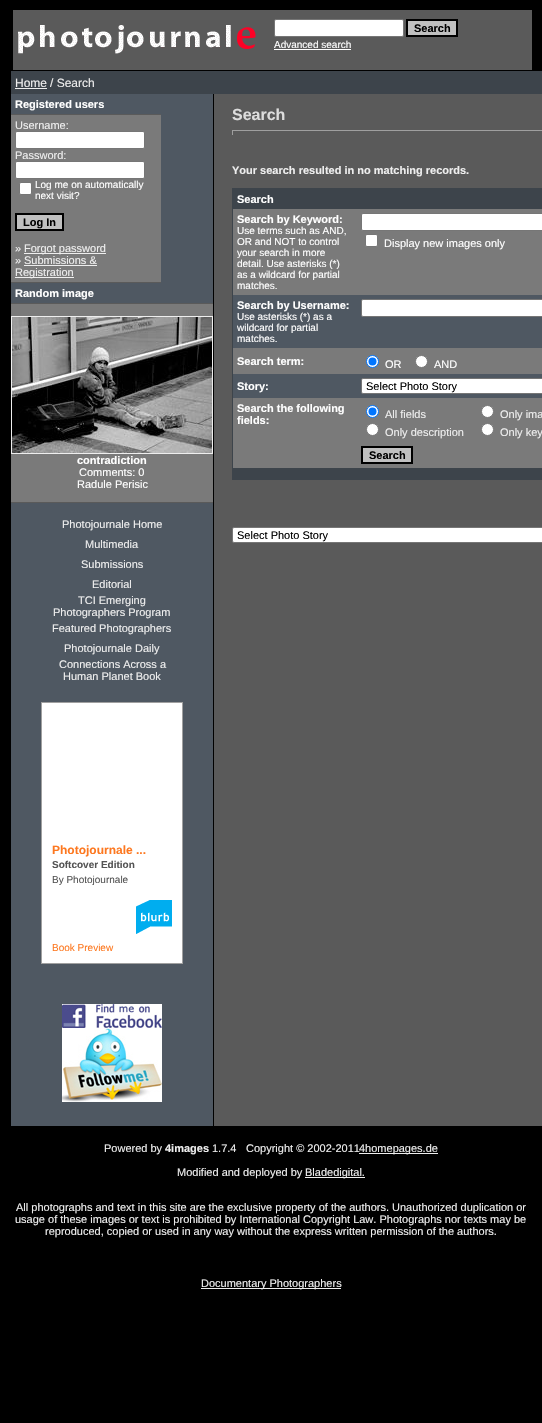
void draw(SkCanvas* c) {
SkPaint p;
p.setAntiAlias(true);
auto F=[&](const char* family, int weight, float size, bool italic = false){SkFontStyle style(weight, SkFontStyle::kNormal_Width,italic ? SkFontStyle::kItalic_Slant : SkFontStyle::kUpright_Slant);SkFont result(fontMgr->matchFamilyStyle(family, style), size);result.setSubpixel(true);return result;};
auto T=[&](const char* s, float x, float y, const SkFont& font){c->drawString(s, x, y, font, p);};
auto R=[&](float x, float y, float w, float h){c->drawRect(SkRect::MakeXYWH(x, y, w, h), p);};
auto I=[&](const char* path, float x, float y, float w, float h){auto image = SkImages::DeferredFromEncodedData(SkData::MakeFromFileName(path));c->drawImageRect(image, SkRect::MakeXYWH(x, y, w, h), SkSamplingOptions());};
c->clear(0xff000000);
p.setColor(0xff5a5a5a);
R(13,10,519,60);
I("1.png",18,25,238,29);
p.setColor(0xffffffff);
c->drawRoundRect(SkRect::MakeXYWH(274.5,19.5,129,17),1.5,1.5,p);
p.setStroke(true);
p.setStrokeWidth(1);
p.setColor(0xff767676);
c->drawRoundRect(SkRect::MakeXYWH(274.5,19.5,129,17),1.5,1.5,p);
p.setStroke(false);
p.setColor(0xffc0c0c0);
c->drawRect(SkRect::MakeXYWH(407,20,50,16),p);
p.setStroke(true);
p.setStrokeWidth(2);
p.setColor(0xff000000);
c->drawRect(SkRect::MakeXYWH(407,20,50,16),p);
auto f1 = F("Liberation Sans",700,11);
p.setStroke(false);
T("Search",414,32,f1);
auto f2 = F("Liberation Sans",400,10);
p.setColor(0xffffffff);
T("Advanced search",274,48,f2);
R(274,49,77,1);
p.setColor(0xff5a5a5a);
R(214,94,328,1032);
p.setColor(0xff3d444b);
R(11,71,531,23);
auto f3 = F("Liberation Sans",400,12);
p.setColor(0xffeeeeee);
T("Home",15,87,f3);
R(15,88,32,1);
T("/ Search",50,87,f3);
p.setColor(0xff4f5862);
R(11,94,202,1032);
p.setColor(0xffffffff);
T("Registered users",15,108,f1);
p.setColor(0xff5a5a5a);
R(11,114,150,1);
p.setColor(0xff7a7a7a);
R(11,115,150,167);
auto f4 = F("Liberation Sans",400,11);
p.setColor(0xffeeeeee);
T("Username:",15,129,f4);
p.setColor(0xffffffff);
c->drawRoundRect(SkRect::MakeXYWH(15.5,131.5,129,17),1.5,1.5,p);
p.setStroke(true);
p.setStrokeWidth(1);
p.setColor(0xff767676);
c->drawRoundRect(SkRect::MakeXYWH(15.5,131.5,129,17),1.5,1.5,p);
p.setStroke(false);
p.setColor(0xffeeeeee);
T("Password:",15,159,f4);
p.setColor(0xffffffff);
c->drawRoundRect(SkRect::MakeXYWH(15.5,161.5,129,17),1.5,1.5,p);
p.setStroke(true);
p.setColor(0xff767676);
c->drawRoundRect(SkRect::MakeXYWH(15.5,161.5,129,17),1.5,1.5,p);
p.setStroke(false);
p.setColor(0xffffffff);
c->drawRoundRect(SkRect::MakeXYWH(19.5,182.5,12,12),1.5,1.5,p);
p.setStroke(true);
p.setColor(0xff767676);
c->drawRoundRect(SkRect::MakeXYWH(19.5,182.5,12,12),1.5,1.5,p);
p.setStroke(false);
p.setColor(0xffffffff);
T("Log me on automatically",35,188,f2);
T("next visit?",35,199,f2);
p.setColor(0xffc0c0c0);
c->drawRect(SkRect::MakeXYWH(16,214,47,16),p);
p.setStroke(true);
p.setStrokeWidth(2);
p.setColor(0xff000000);
c->drawRect(SkRect::MakeXYWH(16,214,47,16),p);
p.setStroke(false);
T("Log In",23,226,f1);
p.setColor(0xffeeeeee);
T("»",15,252,f4);
R(24,253,82,1);
T("Forgot password",24,252,f4);
T("»",15,264,f4);
T("Submissions &",24,264,f4);
R(24,265,73,1);
R(15,277,59,1);
T("Registration",15,276,f4);
p.setColor(0xff5a5a5a);
R(11,282,150,1);
p.setColor(0xffffffff);
T("Random image",15,297,f1);
p.setColor(0xff5a5a5a);
R(11,303,202,1);
p.setColor(0xff7a7a7a);
R(11,304,202,198);
p.setStroke(true);
p.setStrokeWidth(1);
p.setColor(0xffeeeeee);
c->drawRect(SkRect::MakeXYWH(11.5,316.5,201,137),p);
I("2.png",12,317,200,136);
p.setStroke(false);
p.setColor(0xffffffff);
T("contradiction",77,464,f1);
T("Comments: 0",79,476,f4);
T("Radule Perisic",77,488,f4);
p.setColor(0xff5a5a5a);
R(11,502,202,1);
p.setColor(0xffeeeeee);
T("Photojournale Home",62,528,f4);
T("Multimedia",85,548,f4);
T("Submissions",81,568,f4);
T("Editorial",92,588,f4);
T("TCI Emerging",78,604,f4);
T("Photographers Program",53,616,f4);
T("Featured Photographers",52,632,f4);
T("Photojournale Daily",64,652,f4);
T("Connections Across a",59,668,f4);
T("Human Planet Book",63,680,f4);
p.setColor(0xffffffff);
c->drawRect(SkRect::MakeXYWH(41.5,702.5,141,261),p);
p.setStroke(true);
p.setColor(0xffa0a0a0);
c->drawRect(SkRect::MakeXYWH(41.5,702.5,141,261),p);
auto f5 = F("Liberation Sans",700,12);
p.setStroke(false);
p.setColor(0xfffd7820);
T("Photojournale ...",52,854,f5);
auto f6 = F("Liberation Sans",700,10);
p.setColor(0xff545454);
T("Softcover Edition",52,868,f6);
T("By Photojournale",52,883,f2);
I("3.png",136,900,36,34);
p.setColor(0xfffd7820);
T("Book Preview",52,951,f2);
I("4.png",62,1004,100,24);
I("5.png",62,1028,100,74);
auto f7 = F("Liberation Sans",700,16);
p.setColor(0xffdddddd);
T("Search",232,120,f7);
p.setColor(0xff9f9f9f);
R(232,130,310,1);
R(232,130,1,5);
p.setColor(0xffeeeeee);
T("Your search resulted in no matching records.",232,174,f1);
p.setColor(0xff3d444b);
R(232,188,310,292);
p.setColor(0xffffffff);
T("Search",237,203,f1);
p.setColor(0xff7a7a7a);
R(233,209,309,86);
p.setColor(0xffffffff);
T("Search by Keyword:",237,223,f1);
T("Use terms such as AND,",237,234,f2);
T("OR and NOT to control",237,245,f2);
T("your search in more",237,256,f2);
T("detail. Use asterisks (*)",237,267,f2);
T("as a wildcard for partial",237,278,f2);
T("matches.",237,289,f2);
c->drawRoundRect(SkRect::MakeXYWH(361.5,213.5,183,17),1.5,1.5,p);
p.setStroke(true);
p.setColor(0xff767676);
c->drawRoundRect(SkRect::MakeXYWH(361.5,213.5,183,17),1.5,1.5,p);
p.setStroke(false);
p.setColor(0xffffffff);
c->drawRoundRect(SkRect::MakeXYWH(365.5,234.5,12,12),1.5,1.5,p);
p.setStroke(true);
p.setColor(0xff767676);
c->drawRoundRect(SkRect::MakeXYWH(365.5,234.5,12,12),1.5,1.5,p);
p.setStroke(false);
p.setColor(0xffffffff);
T("Display new images only",384,247,f4);
p.setColor(0xff4f5862);
R(233,295,309,53);
p.setColor(0xffffffff);
T("Search by Username:",237,309,f1);
T("Use asterisks (*) as a",237,320,f2);
T("wildcard for partial",237,331,f2);
T("matches.",237,342,f2);
c->drawRoundRect(SkRect::MakeXYWH(361.5,299.5,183,17),1.5,1.5,p);
p.setStroke(true);
p.setColor(0xff767676);
c->drawRoundRect(SkRect::MakeXYWH(361.5,299.5,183,17),1.5,1.5,p);
p.setStroke(false);
p.setColor(0xff7a7a7a);
R(233,348,309,26);
p.setColor(0xffffffff);
T("Search term:",237,365,f1);
c->drawCircle(372.5,361.5,6,p);
p.setStroke(true);
p.setColor(0xff0075ff);
c->drawCircle(372.5,361.5,6,p);
p.setStroke(false);
c->drawCircle(372.5,361.5,4,p);
p.setColor(0xffffffff);
T("OR",385,368,f4);
c->drawCircle(421.5,361.5,6,p);
p.setStroke(true);
p.setColor(0xff767676);
c->drawCircle(421.5,361.5,6,p);
p.setStroke(false);
p.setColor(0xffffffff);
T("AND",434,368,f4);
p.setColor(0xff4f5862);
R(233,374,309,24);
p.setColor(0xffffffff);
T("Story:",237,390,f1);
c->drawRoundRect(SkRect::MakeXYWH(361.5,378.5,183,15),1.5,1.5,p);
p.setStroke(true);
p.setColor(0xff767676);
c->drawRoundRect(SkRect::MakeXYWH(361.5,378.5,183,15),1.5,1.5,p);
p.setStroke(false);
p.setColor(0xff000000);
T("Select Photo Story",366,390,f4);
p.setColor(0xff7a7a7a);
R(233,398,309,44);
p.setColor(0xffffffff);
T("Search the following",237,412,f1);
T("fields:",237,424,f1);
c->drawCircle(372.5,411.5,6,p);
p.setStroke(true);
p.setColor(0xff0075ff);
c->drawCircle(372.5,411.5,6,p);
p.setStroke(false);
c->drawCircle(372.5,411.5,4,p);
p.setColor(0xffeeeeee);
T("All fields",385,418,f4);
p.setColor(0xffffffff);
c->drawCircle(487.5,411.5,6,p);
p.setStroke(true);
p.setColor(0xff767676);
c->drawCircle(487.5,411.5,6,p);
p.setStroke(false);
p.setColor(0xffeeeeee);
T("Only ima",500,418,f4);
p.setColor(0xffffffff);
c->drawCircle(372.5,429.5,6,p);
p.setStroke(true);
p.setColor(0xff767676);
c->drawCircle(372.5,429.5,6,p);
p.setStroke(false);
p.setColor(0xffeeeeee);
T("Only description",385,436,f4);
p.setColor(0xffffffff);
c->drawCircle(487.5,429.5,6,p);
p.setStroke(true);
p.setColor(0xff767676);
c->drawCircle(487.5,429.5,6,p);
p.setStroke(false);
p.setColor(0xffeeeeee);
T("Only key",500,436,f4);
p.setColor(0xff7a7a7a);
R(233,442,309,26);
p.setColor(0xffc0c0c0);
c->drawRect(SkRect::MakeXYWH(362,447,50,16),p);
p.setStroke(true);
p.setStrokeWidth(2);
p.setColor(0xff000000);
c->drawRect(SkRect::MakeXYWH(362,447,50,16),p);
p.setStroke(false);
T("Search",369,459,f1);
p.setColor(0xffffffff);
c->drawRoundRect(SkRect::MakeXYWH(232.5,527.5,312,15),1.5,1.5,p);
p.setStroke(true);
p.setStrokeWidth(1);
p.setColor(0xff767676);
c->drawRoundRect(SkRect::MakeXYWH(232.5,527.5,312,15),1.5,1.5,p);
p.setStroke(false);
p.setColor(0xff000000);
T("Select Photo Story",237,539,f4);
p.setColor(0xffeeeeee);
T("Powered by",104,1152,f4);
T("4images",165,1152,f1);
T("1.7.4",212,1152,f4);
T("Copyright © 2002-2011",246,1152,f4);
R(359,1153,79,1);
T("4homepages.de",359,1152,f4);
T("Modified and deployed by",177,1176,f4);
R(305,1177,60,1);
T("Bladedigital.",305,1176,f4);
T("All photographs and text in this site are the exclusive property of the authors. Unauthorized duplication or",16,1211,f4);
T("usage of these images or text is prohibited by International Copyright Law. Photographs nor texts may be",15,1223,f4);
T("reproduced, copied or used in any way without the express written permission of the authors.",45,1235,f4);
R(201,1288,140,1);
T("Documentary Photographers",201,1287,f4);
}
